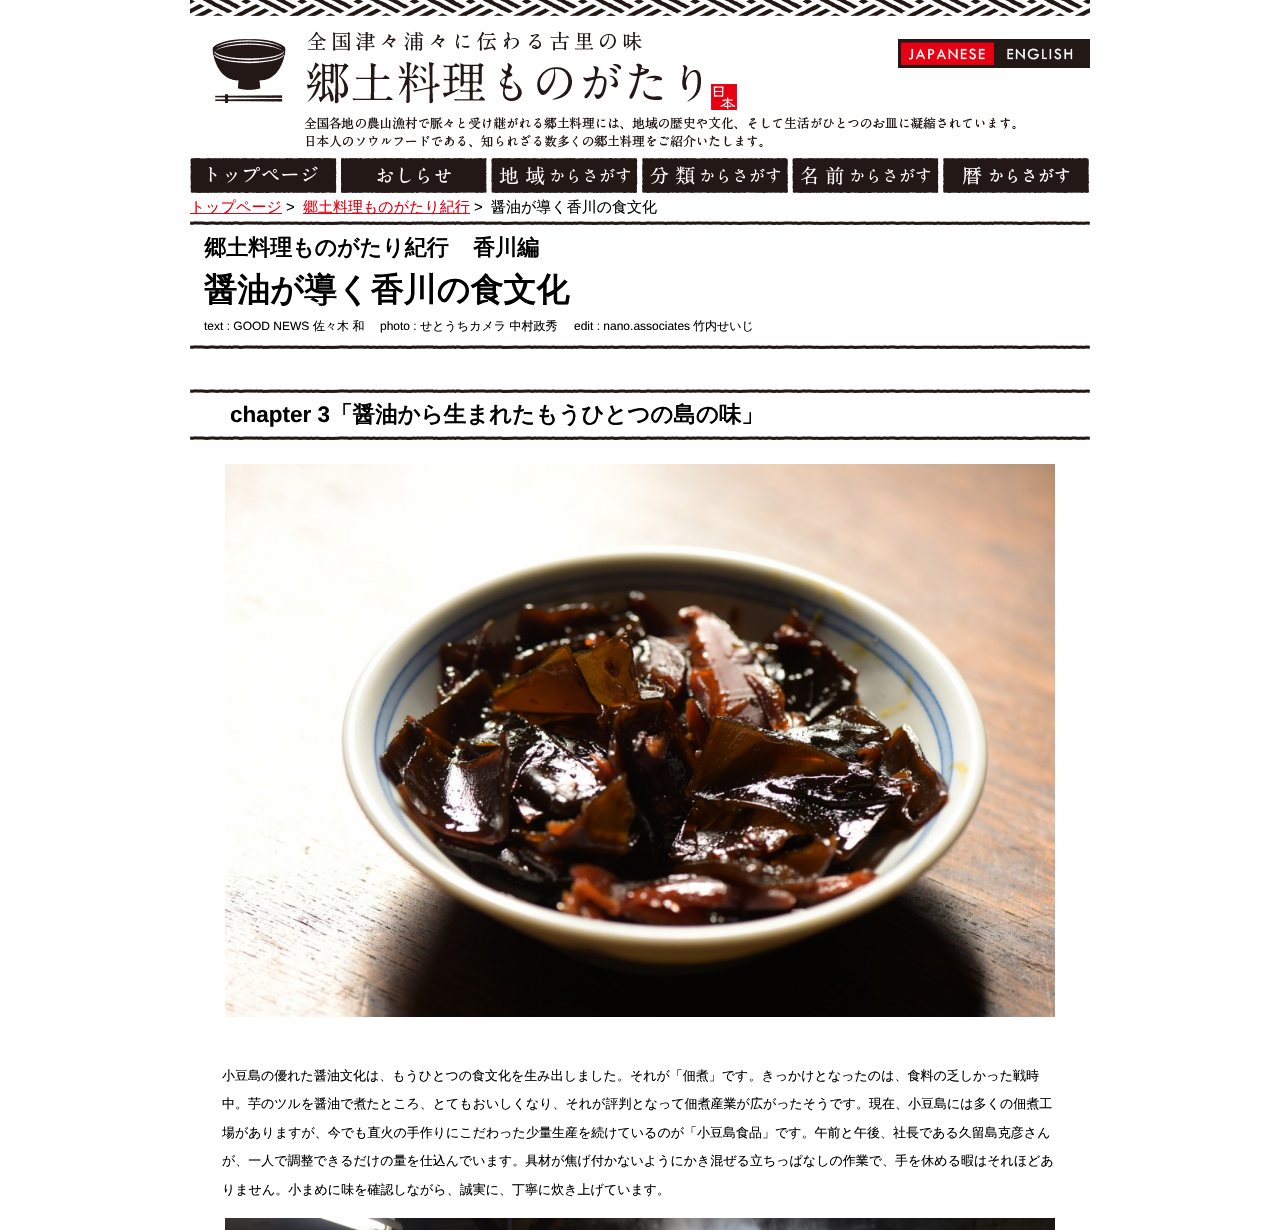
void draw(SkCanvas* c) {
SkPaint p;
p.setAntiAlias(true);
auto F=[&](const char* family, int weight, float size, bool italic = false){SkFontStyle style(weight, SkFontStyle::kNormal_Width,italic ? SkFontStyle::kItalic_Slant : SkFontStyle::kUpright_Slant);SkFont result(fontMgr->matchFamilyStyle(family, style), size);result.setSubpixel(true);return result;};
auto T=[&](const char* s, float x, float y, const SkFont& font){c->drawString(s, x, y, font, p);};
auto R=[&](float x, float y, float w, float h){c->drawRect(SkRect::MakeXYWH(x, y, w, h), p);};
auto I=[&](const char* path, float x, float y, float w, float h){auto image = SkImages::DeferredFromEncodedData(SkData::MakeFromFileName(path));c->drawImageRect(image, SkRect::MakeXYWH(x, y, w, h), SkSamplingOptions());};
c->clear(0xffffffff);
I("1.png",190,0,900,16);
I("2.png",212,31,525,79);
p.setColor(0xff231816);
R(898,39,192,29);
I("3.png",901,42,93,23);
I("4.png",1007,48,66,12);
I("5.png",305,117,711,31);
I("6.png",190,158,147,35);
I("7.png",341,158,146,35);
I("8.png",491,158,147,35);
I("9.png",642,158,146,35);
I("10.png",792,158,147,35);
I("11.png",943,158,146,35);
p.setColor(0xffe60012);
R(190,213,92,1);
auto f1 = F("WenQuanYi Zen Hei",500,15);
T("トップページ",190,212,f1);
auto f2 = F("Liberation Sans",400,15);
p.setColor(0xff000000);
T(">",286,212,f2);
p.setColor(0xffe60012);
R(303,213,167,1);
T("郷土料理ものがたり紀行",303,212,f1);
p.setColor(0xff000000);
T(">",474,212,f2);
T("醤油が導く香川の食文化",491,212,f1);
I("12.png",190,221,900,4);
auto f3 = F("WenQuanYi Zen Hei",700,22);
T("郷土料理ものがたり紀行",204,255,f3);
T("香川編",473,255,f3);
auto f4 = F("WenQuanYi Zen Hei",700,33);
T("醤油が導く香川の食文化",204,301,f4);
auto f5 = F("Liberation Sans",400,12);
T("text : GOOD NEWS",204,330,f5);
auto f6 = F("WenQuanYi Zen Hei",500,12);
T("佐々木 和",313,330,f6);
T("photo :",380,330,f5);
T("せとうちカメラ 中村政秀",420,330,f6);
T("edit : nano.associates",574,330,f5);
T("竹内せいじ",693,330,f6);
I("12.png",190,345,900,4);
I("12.png",190,389,900,4);
auto f7 = F("Liberation Sans",700,22.5);
T("chapter 3",230,422,f7);
auto f8 = F("WenQuanYi Zen Hei",700,22.5);
T("「醤油から生まれたもうひとつの島の味」",330,422,f8);
I("12.png",190,436,900,4);
I("13.png",225,464,830,553);
auto f9 = F("WenQuanYi Zen Hei",500,13);
T("小豆島の優れた醤油文化は、もうひとつの食文化を生み出しました。それが「佃煮」です。きっかけとなったのは、食料の乏しかった戦時",222,1080,f9);
T("中。芋のツルを醤油で煮たところ、とてもおいしくなり、それが評判となって佃煮産業が広がったそうです。現在、小豆島には多くの佃煮工",222,1108,f9);
T("場がありますが、今でも直火の手作りにこだわった少量生産を続けているのが「小豆島食品」です。午前と午後、社長である久留島克彦さん",222,1137,f9);
T("が、一人で調整できるだけの量を仕込んでいます。具材が焦げ付かないようにかき混ぜる立ちっぱなしの作業で、手を休める暇はそれほどあ",222,1165,f9);
T("りません。小まめに味を確認しながら、誠実に、丁寧に炊き上げています。",222,1194,f9);
I("14.png",225,1218,830,12);
}
